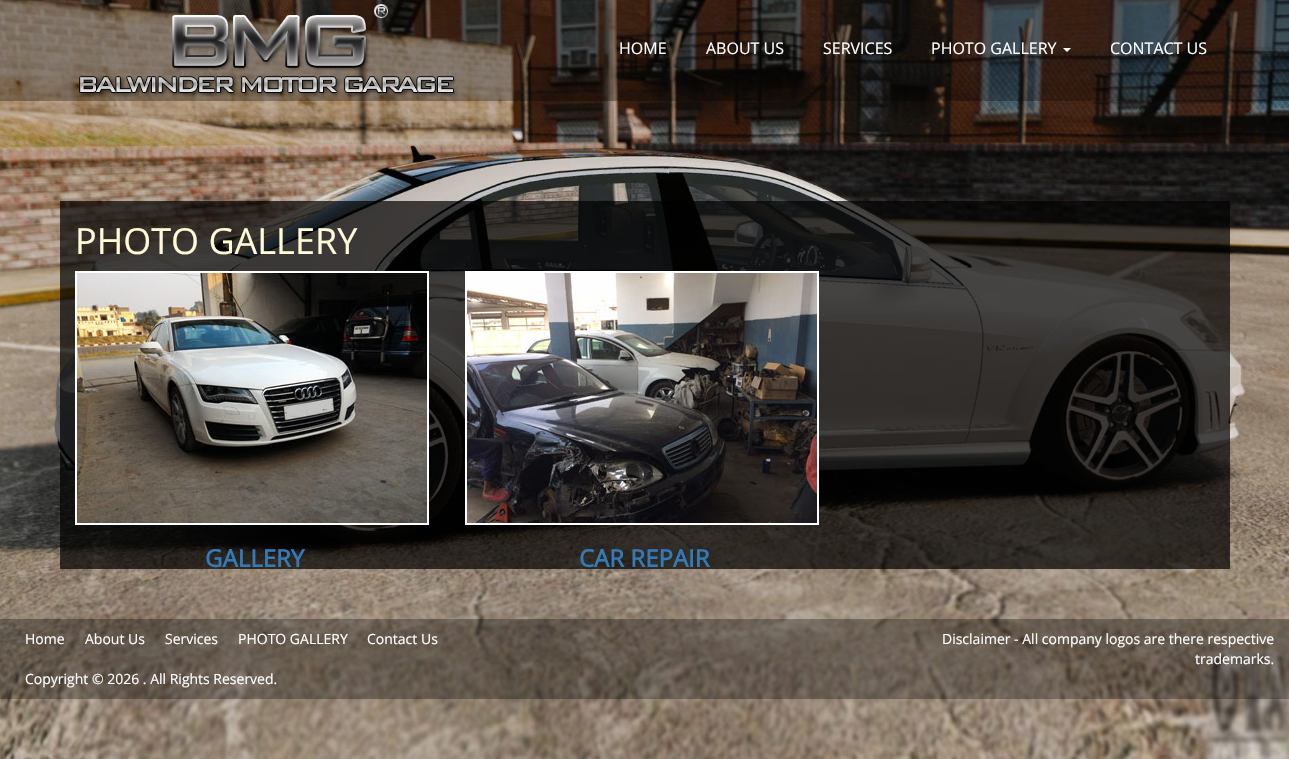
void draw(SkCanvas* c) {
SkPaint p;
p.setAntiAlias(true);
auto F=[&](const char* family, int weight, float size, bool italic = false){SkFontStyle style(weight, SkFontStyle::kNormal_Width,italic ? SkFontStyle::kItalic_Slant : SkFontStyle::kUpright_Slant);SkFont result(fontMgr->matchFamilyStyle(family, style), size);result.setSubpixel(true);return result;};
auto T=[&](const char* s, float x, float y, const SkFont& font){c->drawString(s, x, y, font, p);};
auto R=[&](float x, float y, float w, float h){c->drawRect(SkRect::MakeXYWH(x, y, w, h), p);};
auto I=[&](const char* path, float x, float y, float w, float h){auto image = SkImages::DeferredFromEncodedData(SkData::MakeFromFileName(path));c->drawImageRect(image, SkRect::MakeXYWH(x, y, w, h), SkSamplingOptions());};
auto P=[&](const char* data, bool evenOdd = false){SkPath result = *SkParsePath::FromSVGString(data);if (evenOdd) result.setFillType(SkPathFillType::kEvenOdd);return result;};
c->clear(0xffffffff);
I("2.png",0,0,1289,759);
p.setColor(0x4d000000);
R(0,0,1289,101);
I("1.png",79,4,379,93);
auto f1 = F("Open Sans",400,16);
p.setColor(0xffffffff);
T("HOME",619,54,f1);
T("ABOUT US",706,54,f1);
T("SERVICES",823,54,f1);
T("PHOTO GALLERY",931,54,f1);
c->drawPath(P("M1063 48h8l-4 4z"),p);
T("CONTACT US",1110,54,f1);
p.setColor(0xb3000000);
R(60,201,1170,368);
auto f2 = F("Open Sans",400,36);
p.setColor(0xfffffad7);
T("PHOTO GALLERY",75,254,f2);
p.setStroke(true);
p.setStrokeWidth(2);
p.setColor(0xffffffff);
c->drawRect(SkRect::MakeXYWH(76,272,352,252),p);
I("3.png",77,273,350,250);
auto f3 = F("Open Sans",700,24);
p.setStroke(false);
p.setColor(0xff337ab7);
T("GALLERY",205,567,f3);
p.setStroke(true);
p.setColor(0xffffffff);
c->drawRect(SkRect::MakeXYWH(466,272,352,252),p);
I("4.png",467,273,350,250);
p.setStroke(false);
p.setColor(0xff337ab7);
T("CAR REPAIR",579,567,f3);
p.setColor(0x4d000000);
R(0,619,1289,80);
auto f4 = F("Open Sans",400,14);
p.setColor(0xffffffff);
T("Home",25,644,f4);
T("About Us",85,644,f4);
T("Services",165,644,f4);
T("PHOTO GALLERY",238,644,f4);
T("Contact Us",367,644,f4);
T("Copyright © 2026 . All Rights Reserved.",25,684,f4);
T("Disclaimer - All company logos are there respective",942,644,f4);
T("trademarks.",1195,664,f4);
}
